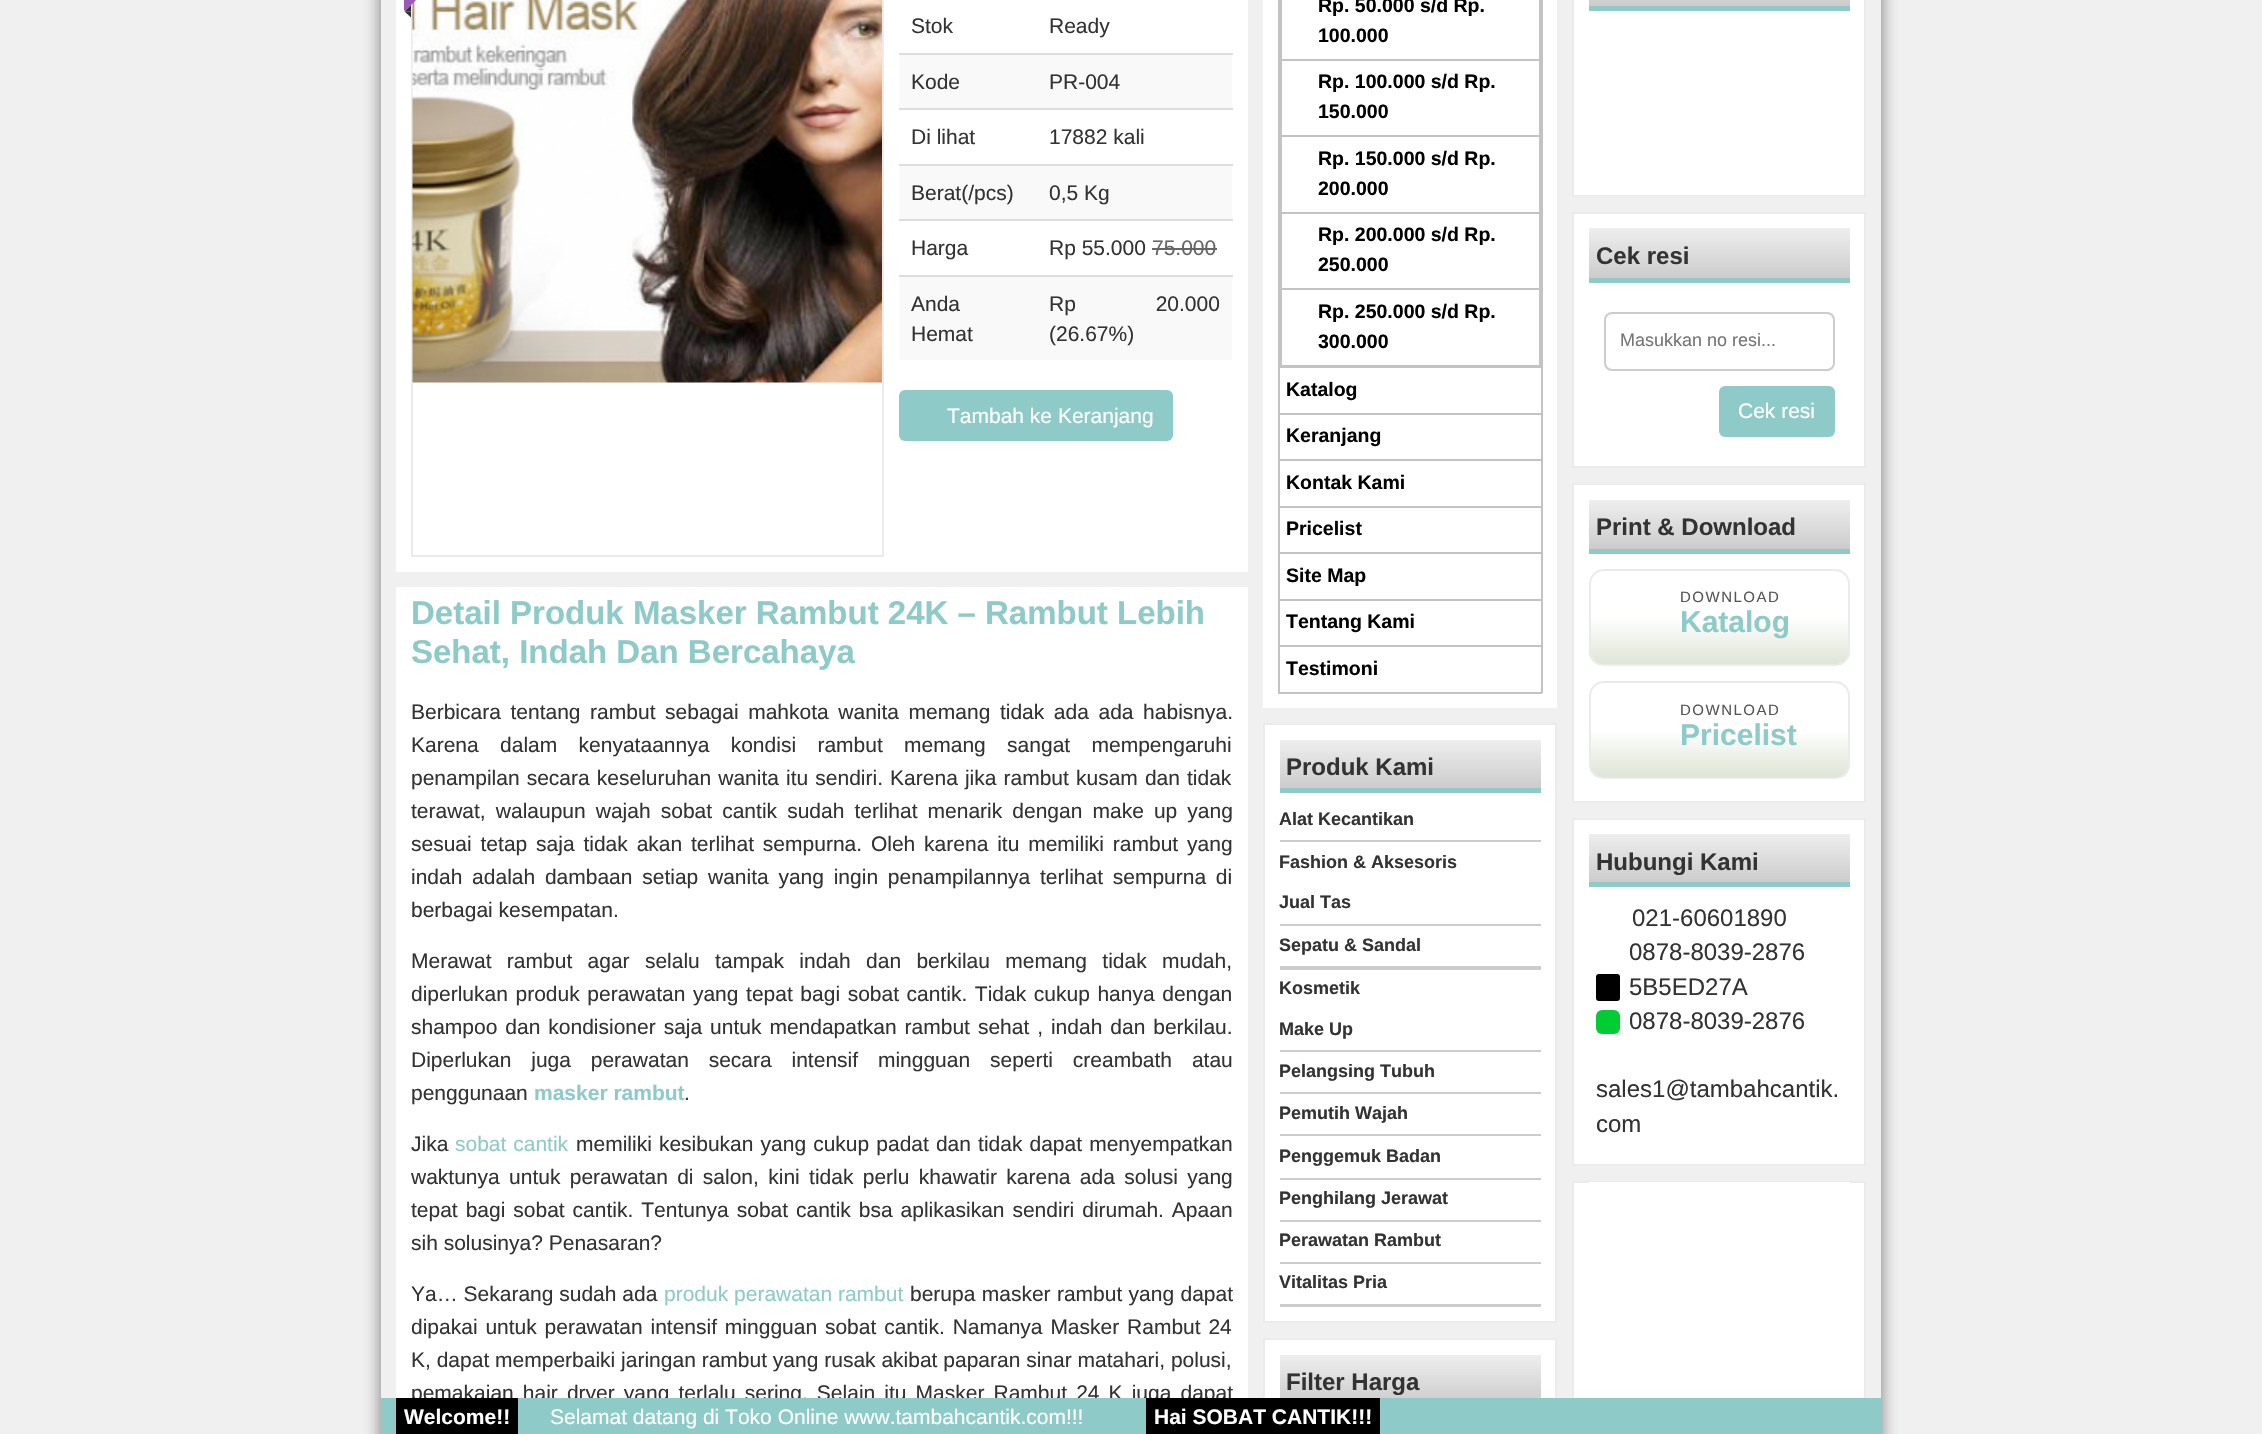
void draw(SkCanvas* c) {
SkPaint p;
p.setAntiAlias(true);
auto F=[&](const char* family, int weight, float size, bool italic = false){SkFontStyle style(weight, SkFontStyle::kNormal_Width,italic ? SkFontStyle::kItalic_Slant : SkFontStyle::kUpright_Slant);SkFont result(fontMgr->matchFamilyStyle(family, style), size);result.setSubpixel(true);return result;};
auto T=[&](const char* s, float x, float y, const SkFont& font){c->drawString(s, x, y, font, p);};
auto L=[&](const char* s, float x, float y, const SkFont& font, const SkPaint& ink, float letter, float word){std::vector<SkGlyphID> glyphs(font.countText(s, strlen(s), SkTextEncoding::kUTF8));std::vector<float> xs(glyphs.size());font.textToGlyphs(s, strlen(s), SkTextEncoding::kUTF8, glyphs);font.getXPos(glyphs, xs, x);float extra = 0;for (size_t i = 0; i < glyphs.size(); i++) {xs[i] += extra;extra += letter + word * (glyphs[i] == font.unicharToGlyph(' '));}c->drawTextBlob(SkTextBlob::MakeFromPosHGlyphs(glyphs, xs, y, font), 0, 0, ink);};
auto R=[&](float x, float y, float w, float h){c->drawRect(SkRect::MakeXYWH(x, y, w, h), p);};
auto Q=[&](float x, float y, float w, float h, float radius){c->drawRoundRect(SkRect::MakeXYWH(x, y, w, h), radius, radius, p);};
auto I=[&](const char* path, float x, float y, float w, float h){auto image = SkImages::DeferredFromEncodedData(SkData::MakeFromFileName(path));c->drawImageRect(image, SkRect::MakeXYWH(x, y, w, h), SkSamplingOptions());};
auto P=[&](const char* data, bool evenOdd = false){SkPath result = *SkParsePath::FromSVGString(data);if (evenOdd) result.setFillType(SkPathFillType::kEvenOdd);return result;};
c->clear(0xfff0f0f0);
c->save();
c->clipPath(P("M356 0h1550v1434h-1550zm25-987h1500v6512h-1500z",true),true);
p.setColor(0xa1323232);
p.setMaskFilter(SkMaskFilter::MakeBlur(kNormal_SkBlurStyle, 8));
c->drawRect(SkRect::MakeXYWH(381,-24,1500,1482),p);
p.setMaskFilter(nullptr);
c->restore();
p.setColor(0xffffffff);
R(396,0,852,572);
p.setStroke(true);
p.setStrokeWidth(2);
p.setColor(0xffebebeb);
c->drawRect(SkRect::MakeXYWH(412,-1,471,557),p);
I("1.png",412,0,470,383);
c->save();
c->clipRect(SkRect::MakeXYWH(404,0,112,17));
p.setStroke(false);
p.setColor(0xff9b59b6);
c->drawPath(P("M383-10l106-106l22 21l-106 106z"),p);
c->restore();
p.setColor(0xff333333);
c->drawPath(P("M404.5 11.5l6.5-6.5v6.5z"),p);
c->drawPath(P("M411 17.5l-6.5-6h6.5z"),p);
auto f1 = F("Liberation Sans",400,21);
T("Stok",911,33,f1);
T("Ready",1049,33,f1);
p.setColor(0xfff9f9f9);
R(899,55,333,53);
p.setColor(0xff333333);
T("Kode",911,89,f1);
p.setColor(0xffdddddd);
R(899,53,334,2);
p.setColor(0xff333333);
T("PR-004",1049,89,f1);
T("Di lihat",911,144,f1);
p.setColor(0xffdddddd);
R(899,108,334,2);
p.setColor(0xff333333);
T("17882 kali",1049,144,f1);
p.setColor(0xfff9f9f9);
R(899,166,333,53);
p.setColor(0xff333333);
T("Berat(/pcs)",911,200,f1);
p.setColor(0xffdddddd);
R(899,164,334,2);
p.setColor(0xff333333);
T("0,5 Kg",1049,200,f1);
T("Harga",911,255,f1);
p.setColor(0xffdddddd);
R(899,219,334,2);
p.setColor(0xff333333);
T("Rp 55.000",1049,255,f1);
p.setColor(0xff666666);
T("75.000",1152,255,f1);
R(1152,248,65,2);
p.setColor(0xfff9f9f9);
R(899,277,333,83);
p.setColor(0xff333333);
T("Anda",911,311,f1);
T("Hemat",911,341,f1);
p.setColor(0xffdddddd);
R(899,275,334,2);
p.setColor(0xff333333);
L("Rp 20.000",1049,311,f1,p,0,74);
T("(26.67%)",1049,341,f1);
p.setColor(0xff8ecbc8);
Q(899,390,274,51,6);
p.setColor(0xffffffff);
T("Tambah ke Keranjang",947,423,f1);
R(396,587,852,811);
auto f2 = F("Liberation Sans",700,33);
p.setColor(0xff8ecbc8);
T("Detail Produk Masker Rambut 24K – Rambut Lebih",411,624,f2);
T("Sehat, Indah Dan Bercahaya",411,663,f2);
p.setColor(0xff333333);
L("Berbicara tentang rambut sebagai mahkota wanita memang tidak ada ada habisnya.",411,719,f1,p,0,3.75);
L("Karena dalam kenyataannya kondisi rambut memang sangat mempengaruhi",411,752,f1,p,0,15.5);
L("penampilan secara keseluruhan wanita itu sendiri. Karena jika rambut kusam dan tidak",411,785,f1,p,0,1.25);
L("terawat, walaupun wajah sobat cantik sudah terlihat menarik dengan make up yang",411,818,f1,p,0,4.25);
L("sesuai tetap saja tidak akan terlihat sempurna. Oleh karena itu memiliki rambut yang",411,851,f1,p,0,3);
L("indah adalah dambaan setiap wanita yang ingin penampilannya terlihat sempurna di",411,884,f1,p,0,3.9);
T("berbagai kesempatan.",411,917,f1);
L("Merawat rambut agar selalu tampak indah dan berkilau memang tidak mudah,",411,968,f1,p,0,9.5);
L("diperlukan produk perawatan yang tepat bagi sobat cantik. Tidak cukup hanya dengan",411,1001,f1,p,0,1.75);
L("shampoo dan kondisioner saja untuk mendapatkan rambut sehat , indah dan berkilau.",411,1034,f1,p,0,2.1);
L("Diperlukan juga perawatan secara intensif mingguan seperti creambath atau",411,1067,f1,p,0,14);
T("penggunaan",411,1100,f1);
auto f3 = F("Liberation Sans",700,21);
p.setColor(0xff8ecbc8);
T("masker rambut",534,1100,f3);
p.setColor(0xff333333);
T(".",684,1100,f1);
T("Jika",411,1151,f1);
p.setColor(0xff8ecbc8);
L("sobat cantik",455,1151,f1,p,0,1);
p.setColor(0xff333333);
L("memiliki kesibukan yang cukup padat dan tidak dapat menyempatkan",576,1151,f1,p,0,1.25);
L("waktunya untuk perawatan di salon, kini tidak perlu khawatir karena ada solusi yang",411,1184,f1,p,0,3.5);
L("tepat bagi sobat cantik. Tentunya sobat cantik bsa aplikasikan sendiri dirumah. Apaan",411,1217,f1,p,0,2.1);
T("sih solusinya? Penasaran?",411,1250,f1);
T("Ya… Sekarang sudah ada",411,1301,f1);
p.setColor(0xff8ecbc8);
T("produk perawatan rambut",664,1301,f1);
p.setColor(0xff333333);
L("berupa masker rambut yang dapat",910,1301,f1,p,0,.5);
L("dipakai untuk perawatan intensif mingguan sobat cantik. Namanya Masker Rambut 24",411,1334,f1,p,0,2);
T("K, dapat memperbaiki jaringan rambut yang rusak akibat paparan sinar matahari, polusi,",411,1367,f1);
L("pemakaian hair dryer yang terlalu sering. Selain itu Masker Rambut 24 K juga dapat",411,1400,f1,p,0,3.25);
p.setColor(0xffffffff);
R(1263,0,294,708);
p.setColor(0xffc3c3c3);
R(1541,0,2,414);
R(1278,366,264,2);
R(1278,0,2,368);
R(1539,0,2,60);
R(1280,59,261,2);
R(1280,0,2,60);
auto f4 = F("Liberation Sans",700,19.5);
p.setColor(0xff000000);
T("Rp. 50.000 s/d Rp.",1318,12,f4);
T("100.000",1318,42,f4);
p.setColor(0xffc3c3c3);
R(1539,60,2,153);
R(1280,135,261,2);
R(1280,60,2,77);
p.setColor(0xff000000);
T("Rp. 100.000 s/d Rp.",1318,88,f4);
T("150.000",1318,118,f4);
p.setColor(0xffc3c3c3);
R(1280,212,261,2);
R(1280,137,2,76);
p.setColor(0xff000000);
T("Rp. 150.000 s/d Rp.",1318,165,f4);
T("200.000",1318,195,f4);
p.setColor(0xffc3c3c3);
R(1539,213,2,153);
R(1280,288,261,2);
R(1280,213,2,77);
p.setColor(0xff000000);
T("Rp. 200.000 s/d Rp.",1318,241,f4);
T("250.000",1318,271,f4);
p.setColor(0xffc3c3c3);
R(1280,365,261,1);
R(1280,290,2,76);
p.setColor(0xff000000);
T("Rp. 250.000 s/d Rp.",1318,318,f4);
T("300.000",1318,348,f4);
p.setColor(0xffc3c3c3);
R(1278,413,264,2);
R(1278,368,2,46);
p.setColor(0xff000000);
T("Katalog",1286,396,f4);
p.setColor(0xffc3c3c3);
R(1541,414,2,93);
R(1278,459,264,2);
R(1278,414,2,47);
p.setColor(0xff000000);
T("Keranjang",1286,442,f4);
p.setColor(0xffc3c3c3);
R(1278,506,264,2);
R(1278,461,2,46);
p.setColor(0xff000000);
T("Kontak Kami",1286,489,f4);
p.setColor(0xffc3c3c3);
R(1541,507,2,93);
R(1278,552,264,2);
R(1278,507,2,47);
p.setColor(0xff000000);
T("Pricelist",1286,535,f4);
p.setColor(0xffc3c3c3);
R(1278,599,264,2);
R(1278,554,2,46);
p.setColor(0xff000000);
T("Site Map",1286,582,f4);
p.setColor(0xffc3c3c3);
R(1541,600,2,93);
R(1278,645,264,2);
R(1278,600,2,47);
p.setColor(0xff000000);
T("Tentang Kami",1286,628,f4);
p.setColor(0xffc3c3c3);
R(1278,692,264,2);
R(1278,647,2,46);
p.setColor(0xff000000);
T("Testimoni",1286,675,f4);
p.setColor(0xffffffff);
c->drawRect(SkRect::MakeXYWH(1264,724,292,598),p);
p.setStroke(true);
p.setColor(0xffebebeb);
c->drawRect(SkRect::MakeXYWH(1264,724,292,598),p);
p.setStroke(false);
{
const SkColor colors[] = {0xffeeeeee,0xffcccccc};
const float stops[] = {0,1};
const SkPoint ends[] = {{1410,740}, {1410,788}};
p.setShader(SkGradientShader::MakeLinear(ends, colors, stops, 2, SkTileMode::kClamp));
p.setAlpha(255);
}
R(1280,740,261,48);
p.setShader(nullptr);
p.setColor(0xff8ecbc8);
R(1280,788,261,5);
auto f5 = F("Liberation Sans",700,24);
p.setColor(0xff333333);
T("Produk Kami",1286,775,f5);
p.setColor(0xffcccccc);
R(1280,840,261,2);
auto f6 = F("Liberation Sans",700,18);
p.setColor(0xff333333);
T("Alat Kecantikan",1279,825,f6);
p.setColor(0xffcccccc);
R(1280,966,261,4);
p.setColor(0xff333333);
T("Fashion & Aksesoris",1279,868,f6);
p.setColor(0xffcccccc);
R(1280,924,261,2);
p.setColor(0xff333333);
T("Jual Tas",1279,908,f6);
T("Sepatu & Sandal",1279,951,f6);
p.setColor(0xffcccccc);
R(1280,1304,261,3);
p.setColor(0xff333333);
T("Kosmetik",1279,994,f6);
p.setColor(0xffcccccc);
R(1280,1050,261,2);
p.setColor(0xff333333);
T("Make Up",1279,1035,f6);
p.setColor(0xffcccccc);
R(1280,1092,261,2);
p.setColor(0xff333333);
T("Pelangsing Tubuh",1279,1077,f6);
p.setColor(0xffcccccc);
R(1280,1134,261,2);
p.setColor(0xff333333);
T("Pemutih Wajah",1279,1119,f6);
p.setColor(0xffcccccc);
R(1280,1178,261,2);
p.setColor(0xff333333);
T("Penggemuk Badan",1279,1162,f6);
p.setColor(0xffcccccc);
R(1280,1220,261,2);
p.setColor(0xff333333);
T("Penghilang Jerawat",1279,1204,f6);
p.setColor(0xffcccccc);
R(1280,1262,261,2);
p.setColor(0xff333333);
T("Perawatan Rambut",1279,1246,f6);
T("Vitalitas Pria",1279,1288,f6);
p.setColor(0xffffffff);
R(1265,1340,290,58);
p.setStroke(true);
p.setColor(0xffebebeb);
c->drawRect(SkRect::MakeXYWH(1264,1339,292,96),p);
p.setStroke(false);
{
const SkColor colors[] = {0xffeeeeee,0xffcccccc};
const float stops[] = {0,1};
const SkPoint ends[] = {{1410,1355}, {1410,1404}};
p.setShader(SkGradientShader::MakeLinear(ends, colors, stops, 2, SkTileMode::kClamp));
p.setAlpha(255);
}
R(1280,1355,261,43);
p.setShader(nullptr);
p.setColor(0xff333333);
T("Filter Harga",1286,1390,f5);
p.setColor(0xffffffff);
c->drawRect(SkRect::MakeXYWH(1573,-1,292,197),p);
p.setStroke(true);
p.setColor(0xffebebeb);
c->drawRect(SkRect::MakeXYWH(1573,-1,292,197),p);
p.setStroke(false);
{
const SkColor colors[] = {0xffeeeeee,0xffcccccc};
const float stops[] = {0,1};
const SkPoint ends[] = {{1719,-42}, {1719,6}};
p.setShader(SkGradientShader::MakeLinear(ends, colors, stops, 2, SkTileMode::kClamp));
p.setAlpha(255);
}
R(1589,0,261,6);
p.setShader(nullptr);
p.setColor(0xff8ecbc8);
R(1589,6,261,5);
p.setColor(0xffffffff);
c->drawRect(SkRect::MakeXYWH(1573,213,292,254),p);
p.setStroke(true);
p.setColor(0xffebebeb);
c->drawRect(SkRect::MakeXYWH(1573,213,292,254),p);
p.setStroke(false);
{
const SkColor colors[] = {0xffeeeeee,0xffcccccc};
const float stops[] = {0,1};
const SkPoint ends[] = {{1719,228}, {1719,278}};
p.setShader(SkGradientShader::MakeLinear(ends, colors, stops, 2, SkTileMode::kClamp));
p.setAlpha(255);
}
R(1589,228,261,50);
p.setShader(nullptr);
p.setColor(0xff8ecbc8);
R(1589,278,261,5);
p.setColor(0xff333333);
T("Cek resi",1596,264,f5);
p.setStroke(true);
p.setColor(0xffcccccc);
c->drawRoundRect(SkRect::MakeXYWH(1605,313,229,57),7,7,p);
auto f7 = F("Liberation Sans",400,18);
p.setStroke(false);
p.setColor(0xff757575);
T("Masukkan no resi...",1620,346,f7);
p.setColor(0xff8ecbc8);
Q(1719,386,116,51,6);
p.setColor(0xffffffff);
T("Cek resi",1738,418,f1);
c->drawRect(SkRect::MakeXYWH(1573,484,292,318),p);
p.setStroke(true);
p.setColor(0xffebebeb);
c->drawRect(SkRect::MakeXYWH(1573,484,292,318),p);
p.setStroke(false);
{
const SkColor colors[] = {0xffeeeeee,0xffcccccc};
const float stops[] = {0,1};
const SkPoint ends[] = {{1719,500}, {1719,549}};
p.setShader(SkGradientShader::MakeLinear(ends, colors, stops, 2, SkTileMode::kClamp));
p.setAlpha(255);
}
R(1589,500,261,49);
p.setShader(nullptr);
p.setColor(0xff8ecbc8);
R(1589,549,261,5);
p.setColor(0xff333333);
T("Print & Download",1596,535,f5);
c->save();
c->clipPath(P("M1604 569h231c8.5 0 15 6.5 15 15v67c0 8.5-6.5 15-15 15h-231c-8.5 0-15-6.5-15-15v-67c0-8.5 6.5-15 15-15z"),true);
{
const SkColor colors[] = {0xffffffff,0xffffffff,0xffdee4d6};
const float stops[] = {0,.5,1};
const SkPoint ends[] = {{1719,570}, {1719,665}};
p.setShader(SkGradientShader::MakeLinear(ends, colors, stops, 3, SkTileMode::kClamp));
p.setAlpha(255);
}
R(1589,570,261,95);
c->restore();
p.setStroke(true);
p.setShader(nullptr);
p.setColor(0xffebebeb);
c->drawRoundRect(SkRect::MakeXYWH(1590,570,259,95),14,14,p);
auto f8 = F("Liberation Sans",400,15);
p.setStroke(false);
p.setColor(0xff555555);
L("DOWNLOAD",1680,602,f8,p,1.5,0);
auto f9 = F("Liberation Sans",700,30);
p.setColor(0xff8ecbc8);
T("Katalog",1680,632,f9);
c->save();
c->clipPath(P("M1604 681h231c8.5 0 15 6.5 15 15v68c0 8.5-6.5 15-15 15h-231c-8.5 0-15-6.5-15-15v-68c0-8.5 6.5-15 15-15z"),true);
{
const SkColor colors[] = {0xffffffff,0xffffffff,0xffdee4d6};
const float stops[] = {0,.5,1};
const SkPoint ends[] = {{1719,683}, {1719,777}};
p.setShader(SkGradientShader::MakeLinear(ends, colors, stops, 3, SkTileMode::kClamp));
p.setAlpha(255);
}
R(1589,683,261,94);
c->restore();
p.setStroke(true);
p.setShader(nullptr);
p.setColor(0xffebebeb);
c->drawRoundRect(SkRect::MakeXYWH(1590,682,259,96),14,14,p);
p.setStroke(false);
p.setColor(0xff555555);
L("DOWNLOAD",1680,715,f8,p,1.5,0);
p.setColor(0xff8ecbc8);
T("Pricelist",1680,745,f9);
p.setColor(0xffffffff);
c->drawRect(SkRect::MakeXYWH(1573,819,292,346),p);
p.setStroke(true);
p.setColor(0xffebebeb);
c->drawRect(SkRect::MakeXYWH(1573,819,292,346),p);
p.setStroke(false);
{
const SkColor colors[] = {0xffeeeeee,0xffcccccc};
const float stops[] = {0,1};
const SkPoint ends[] = {{1719,834}, {1719,882}};
p.setShader(SkGradientShader::MakeLinear(ends, colors, stops, 2, SkTileMode::kClamp));
p.setAlpha(255);
}
R(1589,834,261,48);
p.setShader(nullptr);
p.setColor(0xff8ecbc8);
R(1589,882,261,5);
p.setColor(0xff333333);
T("Hubungi Kami",1596,870,f5);
auto f10 = F("Liberation Sans",400,24);
T("021-60601890",1632,926,f10);
T("0878-8039-2876",1629,960,f10);
p.setColor(0xff000000);
Q(1596,974,24,27,3);
p.setColor(0xff333333);
T("5B5ED27A",1629,995,f10);
p.setColor(0xff00cc33);
Q(1596,1010,24,24,6);
p.setColor(0xff333333);
T("0878-8039-2876",1629,1029,f10);
T("sales1@tambahcantik.",1596,1097,f10);
T("com",1596,1132,f10);
p.setColor(0xffffffff);
R(1574,1183,290,215);
p.setStroke(true);
p.setColor(0xffebebeb);
c->drawRect(SkRect::MakeXYWH(1573,1182,292,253),p);
p.setStroke(false);
p.setColor(0xffffffff);
R(1589,1182,261,1);
p.setColor(0xff8ecbc8);
R(381,1398,1500,36);
p.setColor(0xff000000);
R(396,1398,122,36);
p.setColor(0xffffffff);
T("Welcome!!",404,1424,f3);
T("Selamat datang di Toko Online www.tambahcantik.com!!!",550,1424,f1);
p.setColor(0xff000000);
R(1146,1398,234,36);
p.setColor(0xffffffff);
T("Hai SOBAT CANTIK!!!",1154,1424,f3);
}
